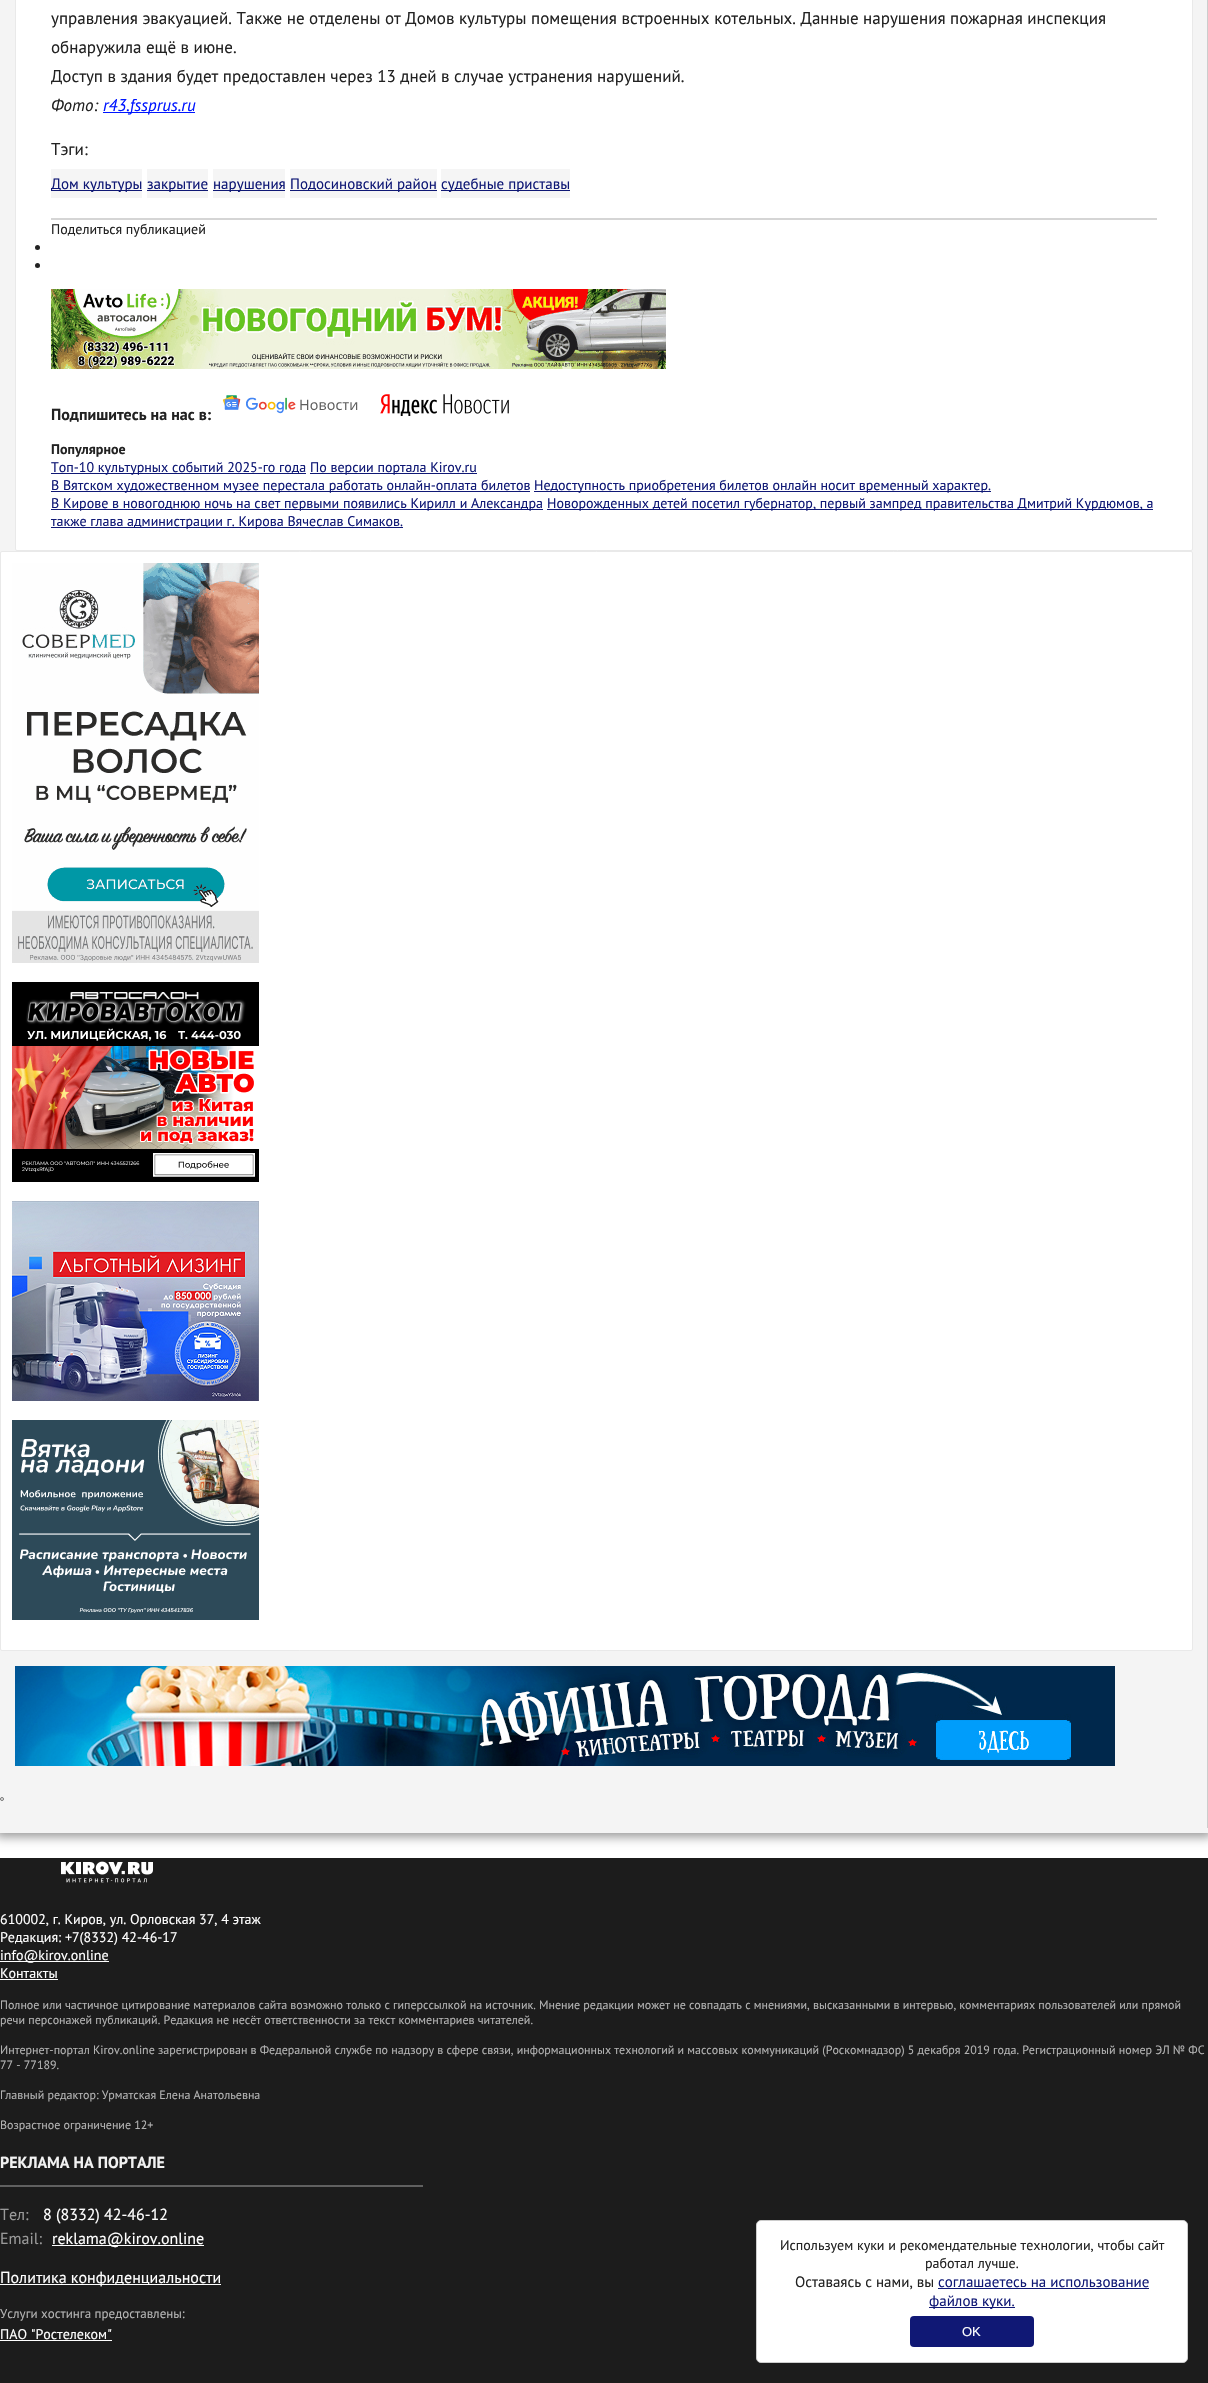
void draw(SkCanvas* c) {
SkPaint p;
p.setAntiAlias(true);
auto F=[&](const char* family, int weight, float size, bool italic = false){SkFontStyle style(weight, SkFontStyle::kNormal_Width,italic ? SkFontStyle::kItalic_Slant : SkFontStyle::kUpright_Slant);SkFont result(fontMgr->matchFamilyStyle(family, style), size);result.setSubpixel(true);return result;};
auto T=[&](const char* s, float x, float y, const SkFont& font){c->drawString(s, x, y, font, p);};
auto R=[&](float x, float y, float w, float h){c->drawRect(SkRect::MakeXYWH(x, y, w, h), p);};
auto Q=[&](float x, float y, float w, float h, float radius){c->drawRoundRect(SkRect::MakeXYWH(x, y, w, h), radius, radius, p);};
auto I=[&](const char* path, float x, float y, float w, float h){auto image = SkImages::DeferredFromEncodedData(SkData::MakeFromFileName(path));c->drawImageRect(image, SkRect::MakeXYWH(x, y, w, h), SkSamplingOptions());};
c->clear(0xffffffff);
p.setColor(0x66000000);
p.setMaskFilter(SkMaskFilter::MakeBlur(kNormal_SkBlurStyle, 5));
c->drawRect(SkRect::MakeXYWH(-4,-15,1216,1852),p);
p.setMaskFilter(nullptr);
p.setColor(0xfff4f4f4);
R(0,0,1208,1833);
p.setColor(0xffffffff);
c->drawRoundRect(SkRect::MakeXYWH(15.5,-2.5,1177,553),1.5,1.5,p);
p.setStroke(true);
p.setStrokeWidth(1);
p.setColor(0xffe9e9e9);
c->drawRoundRect(SkRect::MakeXYWH(15.5,-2.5,1177,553),1.5,1.5,p);
auto f1 = F("PT Sans",400,17);
p.setStroke(false);
p.setColor(0xff222222);
T("управления эвакуацией. Также не отделены от Домов культуры помещения встроенных котельных. Данные нарушения пожарная инспекция",51,24,f1);
T("обнаружила ещё в июне.",51,53,f1);
T("Доступ в здания будет предоставлен через 13 дней в случае устранения нарушений.",51,82,f1);
auto f2 = F("PT Sans",400,17,true);
T("Фото:",51,111,f2);
p.setColor(0xff0016ff);
R(103,112,92,1);
T("r43.fssprus.ru",103,111,f2);
p.setColor(0xff222222);
T("Тэги:",51,155,f1);
p.setColor(0xfff5f5f5);
R(51,169,91,29);
p.setColor(0xff0f1875);
R(51,190,91,1);
auto f3 = F("PT Sans",400,15);
T("Дом культуры",51,189,f3);
p.setColor(0xfff5f5f5);
R(147,169,61,29);
p.setColor(0xff0f1875);
R(147,190,61,1);
T("закрытие",147,189,f3);
p.setColor(0xfff5f5f5);
R(213,169,72,29);
p.setColor(0xff0f1875);
R(213,190,72,1);
T("нарушения",213,189,f3);
p.setColor(0xfff5f5f5);
R(290,169,147,29);
p.setColor(0xff0f1875);
R(290,190,147,1);
T("Подосиновский район",290,189,f3);
p.setColor(0xfff5f5f5);
R(441,169,129,29);
p.setColor(0xff0f1875);
R(441,190,129,1);
T("судебные приставы",441,189,f3);
p.setColor(0xffd5d5d5);
R(51,218,1106,2);
auto f4 = F("PT Sans",400,14);
p.setColor(0xff222222);
T("Поделиться публикацией",51,234,f4);
c->drawCircle(37.5,247.5,2.5,p);
c->drawCircle(37.5,265.5,2.5,p);
I("1.png",51,289,615,80);
auto f5 = F("PT Sans",700,16);
T("Подпишитесь на нас в:",51,420,f5);
I("2.png",222,395,136,19);
I("3.png",380,394,129,22);
auto f6 = F("PT Sans",700,14);
T("Популярное",51,454,f6);
p.setColor(0xff0f1875);
R(51,473,255,1);
T("Топ-10 культурных событий 2025-го года",51,472,f4);
R(310,473,167,1);
T("По версии портала Kirov.ru",310,472,f4);
R(51,491,479,1);
T("В Вятском художественном музее перестала работать онлайн-оплата билетов",51,490,f4);
R(534,491,457,1);
T("Недоступность приобретения билетов онлайн носит временный характер.",534,490,f4);
R(51,509,492,1);
T("В Кирове в новогоднюю ночь на свет первыми появились Кирилл и Александра",51,508,f4);
R(547,509,606,1);
T("Новорожденных детей посетил губернатор, первый зампред правительства Дмитрий Курдюмов, а",547,508,f4);
R(51,527,352,1);
T("также глава администрации г. Кирова Вячеслав Симаков.",51,526,f4);
p.setColor(0xffffffff);
c->drawRoundRect(SkRect::MakeXYWH(.5,551.5,1192,1099),1.5,1.5,p);
p.setStroke(true);
p.setColor(0xffe9e9e9);
c->drawRoundRect(SkRect::MakeXYWH(.5,551.5,1192,1099),1.5,1.5,p);
I("4.png",12,563,247,400);
I("5.png",12,982,247,200);
I("6.png",12,1201,247,200);
I("7.png",12,1420,247,200);
p.setStroke(false);
p.setColor(0xffcccccc);
R(1207,0,1,1828);
I("8.png",15,1666,1100,100);
p.setColor(0xffefefef);
c->drawCircle(2,1799,1.5,p);
p.setStroke(true);
p.setColor(0xff767676);
c->drawCircle(2,1799,1.5,p);
p.setStroke(false);
p.setColor(0xff1c1c1c);
R(0,1858,1208,525);
I("9.png",61,1861,92,22);
p.setColor(0xffffffff);
T("610002, г. Киров, ул. Орловская 37, 4 этаж",0,1924,f4);
T("Редакция: +7(8332) 42-46-17",0,1942,f4);
R(0,1961,109,1);
T("info@kirov.online",0,1960,f4);
T("Контакты",0,1978,f4);
R(0,1979,58,1);
auto f7 = F("PT Sans",400,12);
p.setColor(0xffb3b3b3);
T("Полное или частичное цитирование материалов сайта возможно только с гиперссылкой на источник. Мнение редакции может не совпадать с мнениями, высказанными в интервью, комментариях пользователей или прямой",0,2009,f7);
T("речи персонажей публикаций. Редакция не несёт ответственности за текст комментариев читателей.",0,2024,f7);
T("Интернет-портал Kirov.online зарегистрирован в Федеральной службе по надзору в сфере связи, информационных технологий и массовых коммуникаций (Роскомнадзор) 5 декабря 2019 года. Регистрационный номер ЭЛ № ФС",0,2054,f7);
T("77 - 77189.",0,2069,f7);
T("Главный редактор: Урматская Елена Анатольевна",0,2099,f7);
T("Возрастное ограничение 12+",0,2129,f7);
p.setColor(0xfff2f2f2);
T("РЕКЛАМА НА ПОРТАЛЕ",0,2168,f5);
p.setColor(0xff606060);
R(0,2185,423,2);
auto f8 = F("PT Sans",400,16);
p.setColor(0xff999999);
T("Тел:",0,2220,f8);
p.setColor(0xffffffff);
T("8 (8332) 42-46-12",43,2220,f8);
p.setColor(0xff999999);
T("Email:",0,2244,f8);
p.setColor(0xffffffff);
R(52,2245,152,1);
T("reklama@kirov.online",52,2244,f8);
R(0,2284,221,1);
T("Политика конфиденциальности",0,2283,f8);
auto f9 = F("PT Sans",400,13);
p.setColor(0xffb3b3b3);
T("Услуги хостинга предоставлены:",0,2318,f9);
p.setColor(0xffffffff);
T("ПАО \"Ростелеком\"",0,2339,f4);
R(0,2340,112,1);
c->drawRoundRect(SkRect::MakeXYWH(756.5,2220.5,431,142),4.5,4.5,p);
p.setStroke(true);
p.setColor(0xffcccccc);
c->drawRoundRect(SkRect::MakeXYWH(756.5,2220.5,431,142),4.5,4.5,p);
p.setStroke(false);
p.setColor(0xff222222);
T("Используем куки и рекомендательные технологии, чтобы сайт",780,2250,f4);
T("работал лучше.",925,2268,f4);
T("Оставаясь с нами, вы",795,2287,f3);
p.setColor(0xff0f1875);
T("соглашаетесь на использование",938,2287,f3);
R(938,2288,211,1);
R(929,2307,86,1);
T("файлов куки.",929,2306,f3);
p.setColor(0xff101875);
Q(910,2316,124,31,4);
auto f10 = F("Liberation Sans",400,13);
p.setColor(0xffffffff);
T("OK",962,2336,f10);
}
